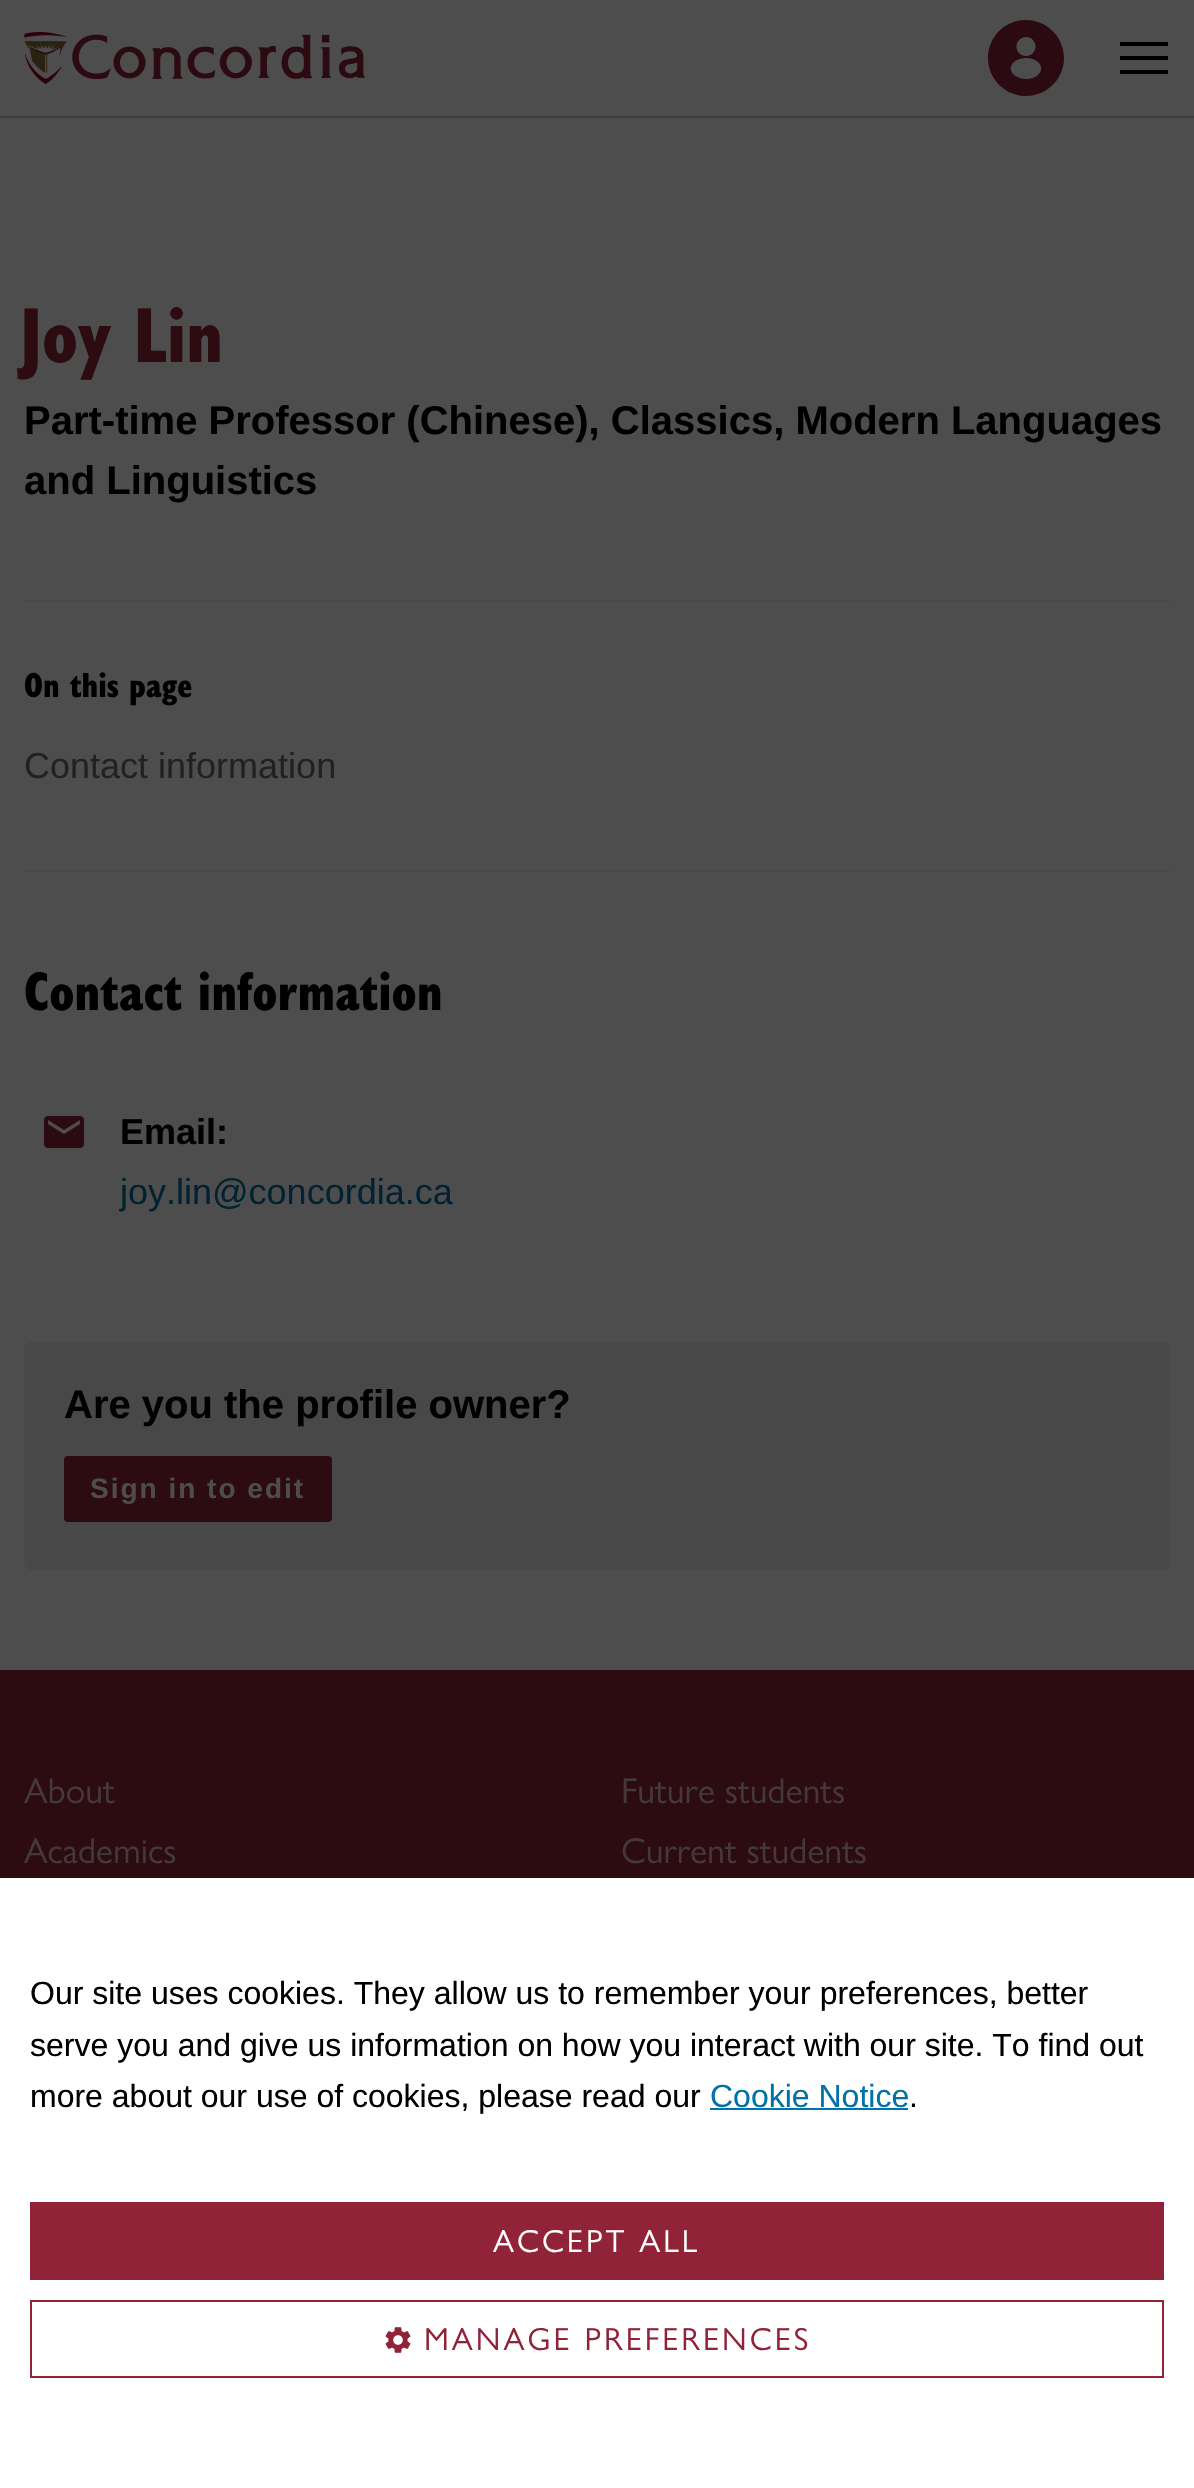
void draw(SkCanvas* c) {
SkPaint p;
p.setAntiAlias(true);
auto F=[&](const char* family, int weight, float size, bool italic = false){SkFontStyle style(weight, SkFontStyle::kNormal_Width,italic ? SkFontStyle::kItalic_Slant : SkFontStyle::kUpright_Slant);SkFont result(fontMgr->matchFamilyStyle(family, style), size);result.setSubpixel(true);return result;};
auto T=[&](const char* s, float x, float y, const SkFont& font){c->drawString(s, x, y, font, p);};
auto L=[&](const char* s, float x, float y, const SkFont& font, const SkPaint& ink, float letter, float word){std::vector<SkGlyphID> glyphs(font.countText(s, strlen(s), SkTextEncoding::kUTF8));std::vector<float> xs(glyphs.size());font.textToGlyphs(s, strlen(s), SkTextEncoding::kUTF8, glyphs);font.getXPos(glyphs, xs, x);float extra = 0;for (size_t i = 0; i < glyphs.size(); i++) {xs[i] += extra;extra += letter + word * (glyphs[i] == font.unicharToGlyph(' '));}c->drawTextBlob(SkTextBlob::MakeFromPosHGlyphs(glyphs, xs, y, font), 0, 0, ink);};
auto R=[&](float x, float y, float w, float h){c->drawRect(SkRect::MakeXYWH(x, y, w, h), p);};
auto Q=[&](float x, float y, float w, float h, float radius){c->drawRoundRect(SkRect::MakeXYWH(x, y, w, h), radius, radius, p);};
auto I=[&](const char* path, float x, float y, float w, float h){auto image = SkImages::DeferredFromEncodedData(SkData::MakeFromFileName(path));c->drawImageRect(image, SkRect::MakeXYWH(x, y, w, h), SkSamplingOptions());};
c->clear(0xff4d4d4d);
I("1.png",24,32,341,52);
I("2.png",988,20,76,76);
I("3.png",1120,42,48,32);
p.setColor(0xff3c3c3c);
R(0,116,1194,2);
p.setColor(0xff484848);
R(24,600,1146,2);
auto f1 = F("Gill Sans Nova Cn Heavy",900,80);
p.setColor(0xff2c0b11);
T("Joy Lin",20,362,f1);
auto f2 = F("Liberation Sans",700,40);
p.setColor(0xff000000);
T("Part-time Professor (Chinese), Classics, Modern Languages",24,434,f2);
T("and Linguistics",24,494,f2);
auto f3 = F("Gill Sans Nova Cn Heavy",900,36);
T("On this page",24,697,f3);
p.setColor(0xff484848);
R(24,870,1146,2);
auto f4 = F("Liberation Sans",400,36);
p.setColor(0xff212121);
T("Contact information",24,778,f4);
auto f5 = F("Gill Sans Nova Cn Heavy",900,56);
p.setColor(0xff000000);
T("Contact information",24,1010,f5);
I("4.png",44,1116,40,32);
auto f6 = F("Liberation Sans",700,36);
T("Email:",120,1144,f6);
p.setColor(0xff002232);
T("joy.lin@concordia.ca",120,1204,f4);
p.setColor(0xff484848);
Q(24,1342,1146,228,8);
p.setColor(0xff000000);
T("Are you the profile owner?",64,1418,f2);
p.setColor(0xff2c0b11);
c->drawRoundRect(SkRect::MakeXYWH(65,1457,266,64),3,3,p);
p.setStroke(true);
p.setStrokeWidth(2);
c->drawRoundRect(SkRect::MakeXYWH(65,1457,266,64),3,3,p);
auto f7 = F("Liberation Sans",700,28);
p.setStroke(false);
p.setColor(0xff4d4d4d);
L("Sign in to edit",90,1498,f7,p,2,0);
p.setColor(0xff2c0b11);
R(0,1670,1194,208);
auto f8 = F("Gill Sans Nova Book",400,36);
p.setColor(0xff43393b);
T("About",24,1803,f8);
T("Academics",24,1863,f8);
T("Future students",621,1803,f8);
T("Current students",621,1863,f8);
p.setColor(0xffffffff);
R(0,1878,1194,610);
auto f9 = F("Liberation Sans",400,32);
p.setColor(0xff000000);
T("Our site uses cookies. They allow us to remember your preferences, better",30,2004,f9);
T("serve you and give us information on how you interact with our site. To find out",30,2056,f9);
T("more about our use of cookies, please read our",30,2107,f9);
p.setColor(0xff0072a8);
T("Cookie Notice",710,2107,f9);
R(710,2108,198,2);
p.setColor(0xff000000);
T(".",909,2107,f9);
p.setColor(0xff912338);
R(30,2202,1134,78);
auto f10 = F("Gill Sans Nova Book",400,32);
p.setColor(0xffffffff);
L("ACCEPT ALL",493,2252,f10,p,3,0);
p.setStroke(true);
p.setColor(0xff912338);
c->drawRect(SkRect::MakeXYWH(31,2301,1132,76),p);
I("5.png",385,2327,26,26);
p.setStroke(false);
L("MANAGE PREFERENCES",424,2350,f10,p,3,0);
}
